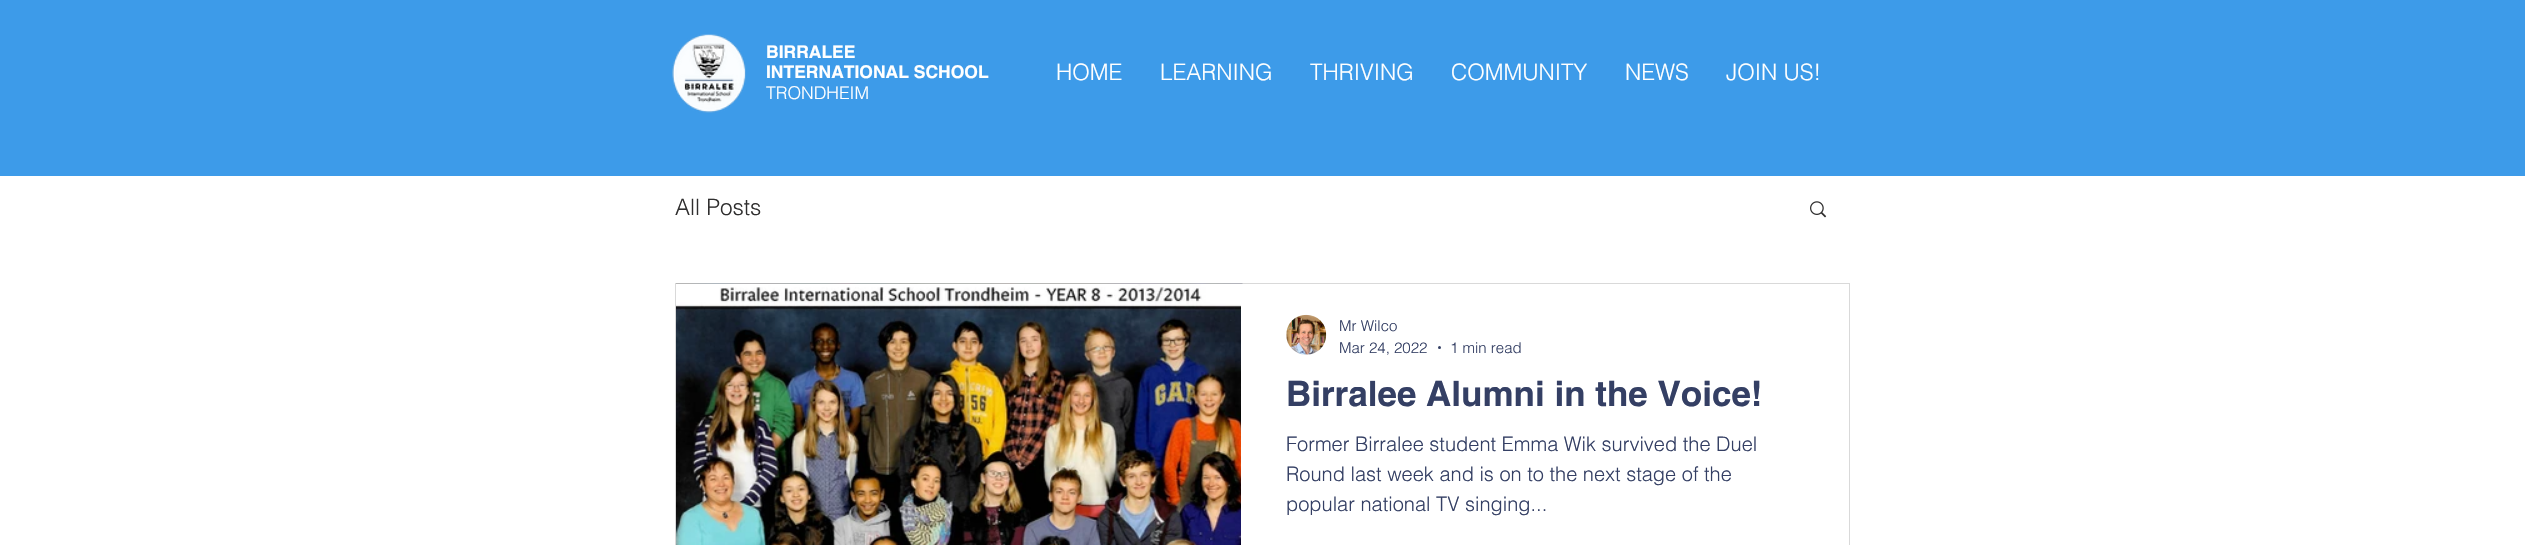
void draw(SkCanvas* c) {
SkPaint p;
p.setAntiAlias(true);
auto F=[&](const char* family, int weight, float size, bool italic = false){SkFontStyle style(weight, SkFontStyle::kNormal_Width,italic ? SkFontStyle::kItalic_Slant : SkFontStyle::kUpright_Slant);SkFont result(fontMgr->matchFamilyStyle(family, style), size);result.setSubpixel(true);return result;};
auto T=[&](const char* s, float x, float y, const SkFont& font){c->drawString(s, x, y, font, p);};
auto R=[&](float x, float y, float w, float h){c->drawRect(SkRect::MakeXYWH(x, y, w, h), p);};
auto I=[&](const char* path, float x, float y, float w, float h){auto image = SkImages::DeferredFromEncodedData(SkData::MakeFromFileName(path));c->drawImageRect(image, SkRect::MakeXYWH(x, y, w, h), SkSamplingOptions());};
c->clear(0xffffffff);
p.setColor(0xff3d9be9);
R(0,0,2525,176);
I("1.png",672,34,74,79);
auto f1 = F("helvetica",700,17.5);
p.setColor(0xffffffff);
T("BIRRALEE",766,58,f1);
T("INTERNATIONAL SCHOOL",766,78,f1);
auto f2 = F("helvetica",300,17.5);
T("TRONDHEIM",766,99,f2);
auto f3 = F("helvetica",300,22.5);
T("HOME",1056,80,f3);
T("LEARNING",1160,80,f3);
T("THRIVING",1310,80,f3);
T("COMMUNITY",1451,80,f3);
T("NEWS",1625,80,f3);
T("JOIN US!",1726,80,f3);
p.setColor(0xff2f2e2e);
T("All Posts",675,215,f3);
I("2.png",1810,201,17,17);
p.setStroke(true);
p.setStrokeWidth(1);
p.setColor(0xffd9d9d9);
c->drawRect(SkRect::MakeXYWH(675.5,283.5,1174,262),p);
I("3.png",676,283,567,1);
I("4.png",676,284,565,261);
I("5.png",1286,314,41,41);
auto f4 = F("helvetica",300,15);
p.setStroke(false);
p.setColor(0xff343f64);
T("Mr Wilco",1339,331,f4);
T("Mar 24, 2022",1339,353,f4);
c->drawCircle(1439.5,347.5,1.5,p);
T("1 min read",1450,353,f4);
auto f5 = F("helvetica",700,35);
T("Birralee Alumni in the Voice!",1286,406,f5);
auto f6 = F("helvetica",300,20);
T("Former Birralee student Emma Wik survived the Duel",1286,451,f6);
T("Round last week and is on to the next stage of the",1286,481,f6);
T("popular national TV singing...",1286,511,f6);
}
